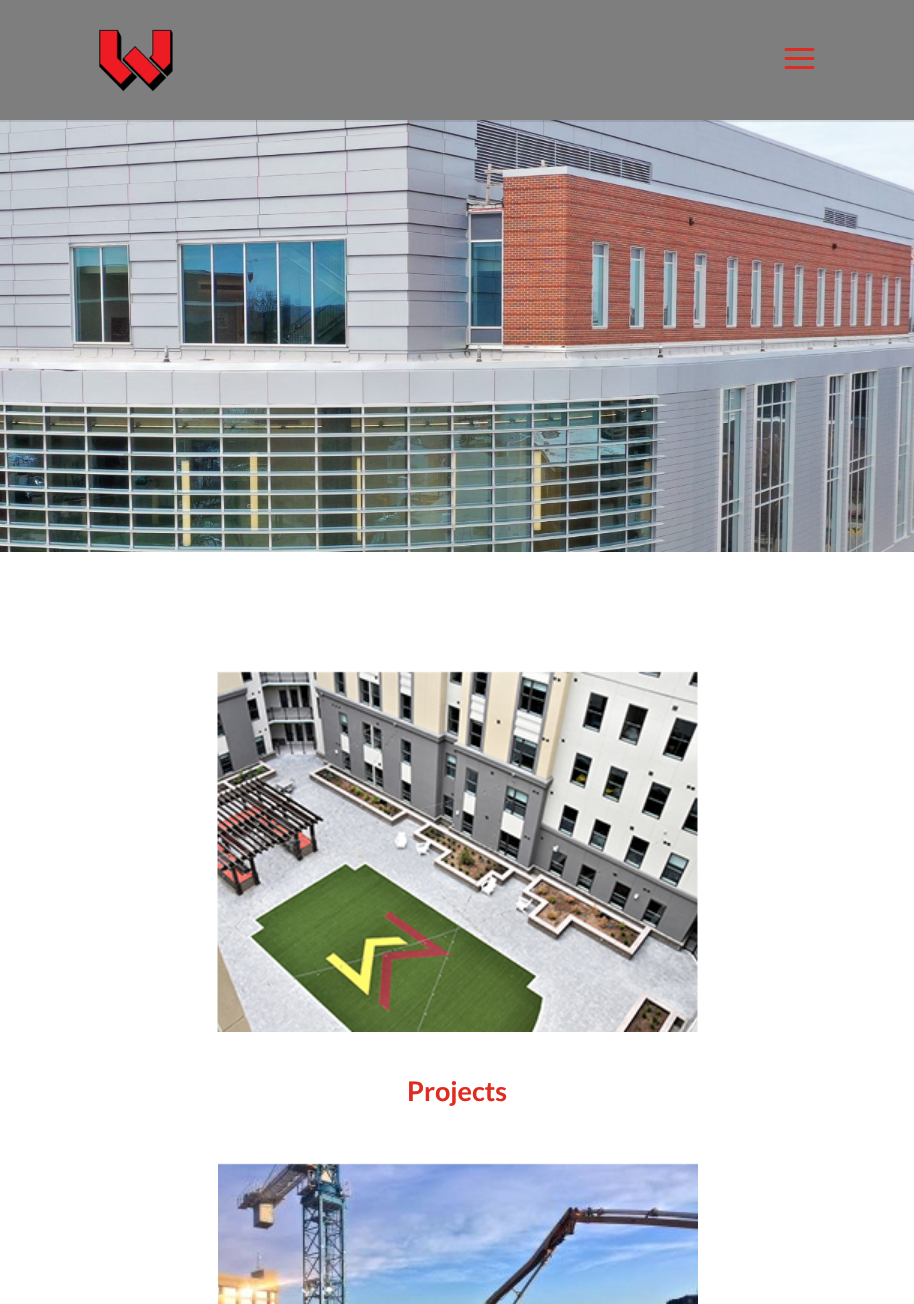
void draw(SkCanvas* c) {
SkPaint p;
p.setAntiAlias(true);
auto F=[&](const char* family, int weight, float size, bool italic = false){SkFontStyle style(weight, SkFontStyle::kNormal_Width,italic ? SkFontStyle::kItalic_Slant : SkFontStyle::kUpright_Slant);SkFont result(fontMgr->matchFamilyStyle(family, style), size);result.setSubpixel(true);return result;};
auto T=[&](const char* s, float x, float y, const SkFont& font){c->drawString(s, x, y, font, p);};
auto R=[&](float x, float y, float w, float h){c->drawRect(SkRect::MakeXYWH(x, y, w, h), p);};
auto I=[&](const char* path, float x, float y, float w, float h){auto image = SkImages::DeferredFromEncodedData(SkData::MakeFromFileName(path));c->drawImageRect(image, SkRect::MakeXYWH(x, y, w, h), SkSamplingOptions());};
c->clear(0xffffffff);
I("3.png",0,120,914,432);
p.setColor(0x1a000000);
R(0,120,914,2);
p.setColor(0xff7e7e7e);
R(0,0,914,120);
I("1.png",99,29,74,63);
I("2.png",784,48,31,21);
I("4.png",217,671,481,361);
auto f1 = F("Lato",700,27);
p.setColor(0xffe02b20);
T("Projects",407,1101,f1);
I("5.png",218,1163,480,141);
}
